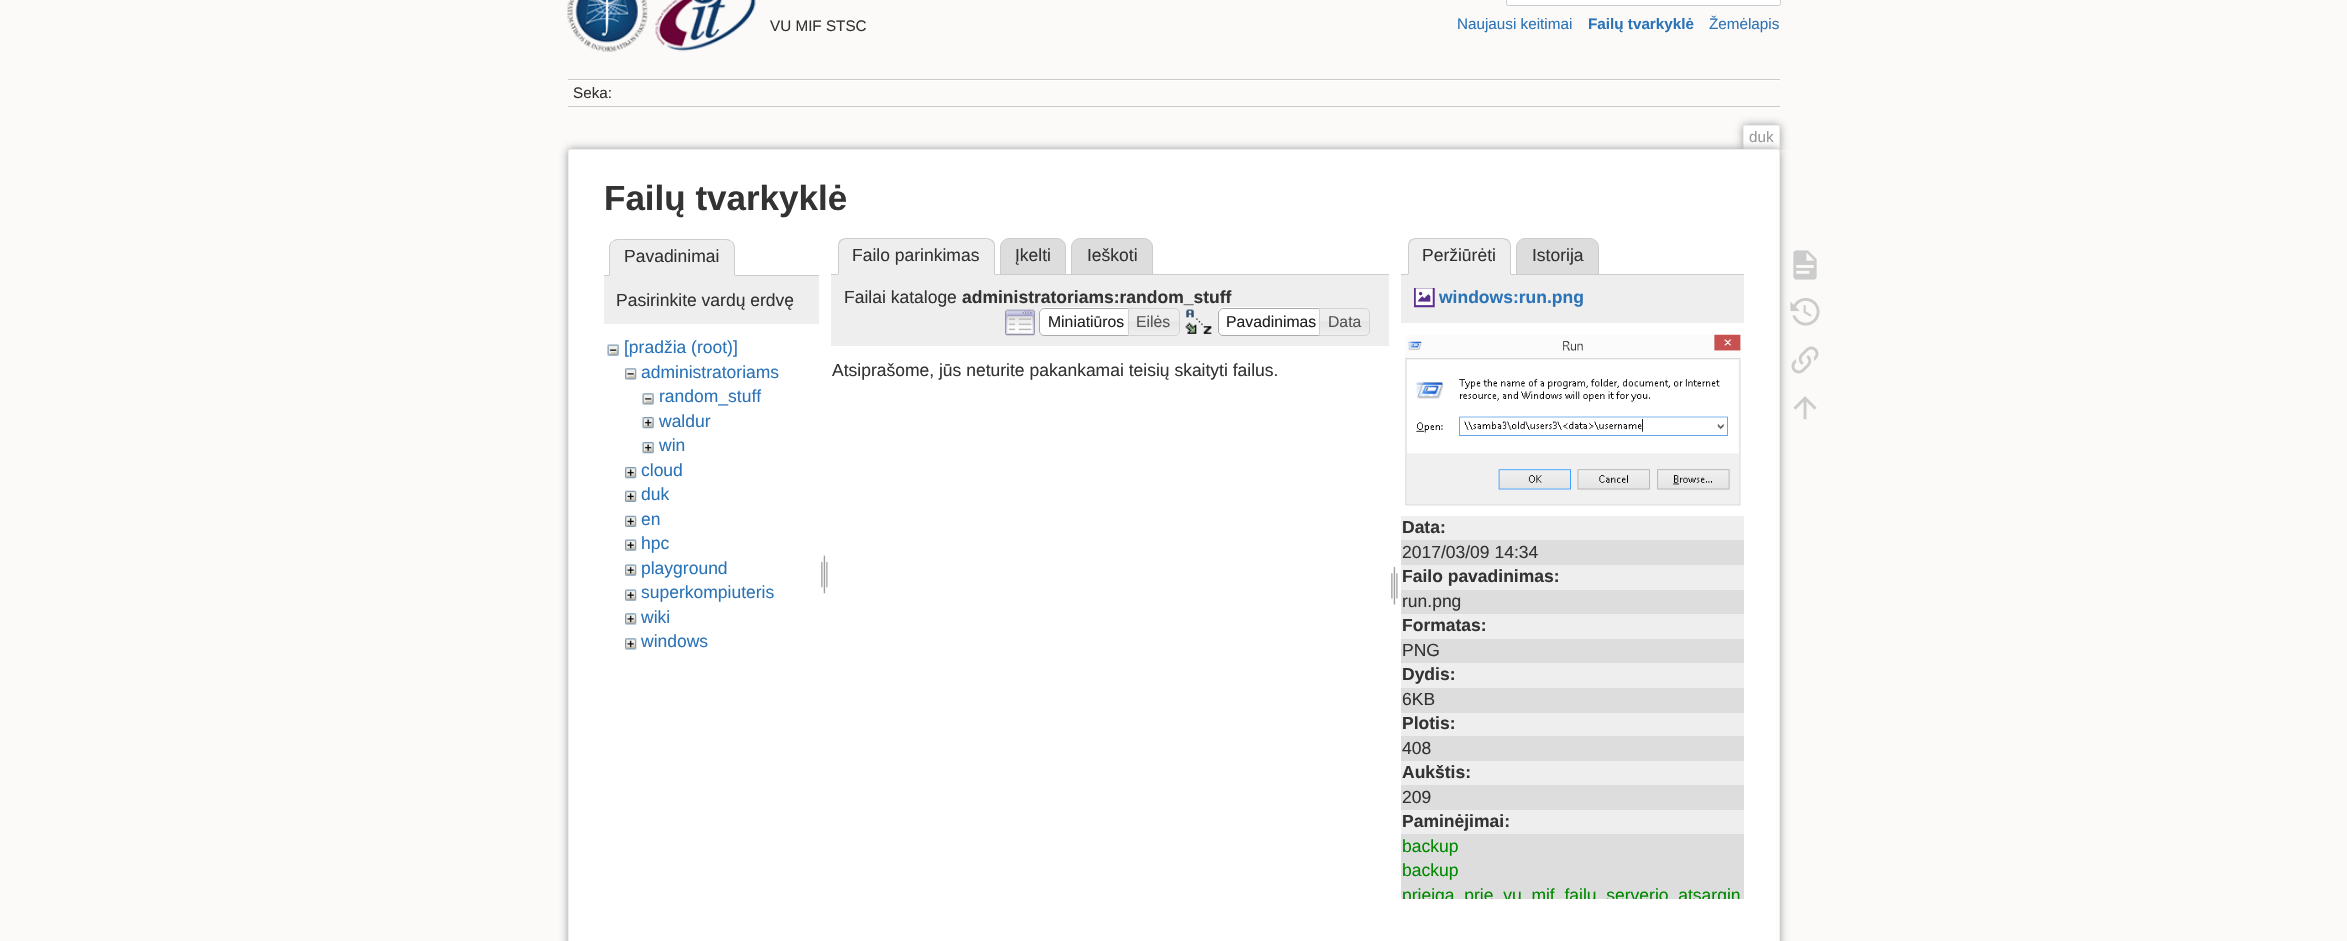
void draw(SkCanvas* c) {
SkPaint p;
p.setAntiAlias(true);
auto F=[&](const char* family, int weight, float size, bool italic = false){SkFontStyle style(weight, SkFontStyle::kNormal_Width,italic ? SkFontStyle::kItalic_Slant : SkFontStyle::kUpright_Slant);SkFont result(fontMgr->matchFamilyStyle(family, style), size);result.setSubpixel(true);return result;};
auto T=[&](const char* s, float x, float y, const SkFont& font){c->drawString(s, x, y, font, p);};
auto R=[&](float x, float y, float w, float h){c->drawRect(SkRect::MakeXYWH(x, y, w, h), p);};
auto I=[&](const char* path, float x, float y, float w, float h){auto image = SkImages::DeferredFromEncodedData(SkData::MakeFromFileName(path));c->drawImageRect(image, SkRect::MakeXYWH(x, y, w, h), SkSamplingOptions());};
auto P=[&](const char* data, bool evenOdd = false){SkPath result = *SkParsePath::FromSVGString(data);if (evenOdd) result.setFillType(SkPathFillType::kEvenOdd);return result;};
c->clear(0xfffbfaf9);
I("1.png",567,0,189,52);
auto f1 = F("Liberation Sans",400,15.25);
p.setColor(0xff333333);
T("VU MIF STSC",770,31,f1);
p.setColor(0xffffffff);
c->drawRoundRect(SkRect::MakeXYWH(1506.5,-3.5,274,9),2,2,p);
p.setStroke(true);
p.setStrokeWidth(1);
p.setColor(0xffcccccc);
c->drawRoundRect(SkRect::MakeXYWH(1506.5,-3.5,274,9),2,2,p);
p.setStroke(false);
p.setColor(0xff2b73b7);
T("Naujausi keitimai",1457,29,f1);
auto f2 = F("Liberation Sans",700,15.25);
T("Failų tvarkyklė",1588,29,f2);
T("Žemėlapis",1709,29,f1);
p.setColor(0xffcccccc);
R(568,79,1212,1);
p.setColor(0xffffffff);
R(568,108,1212,1);
R(568,80,1212,1);
p.setColor(0xffcccccc);
R(568,106,1212,1);
p.setColor(0xff333333);
T("Seka:",573,98,f1);
c->save();
c->clipRect(SkRect::MakeXYWH(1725,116,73,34));
p.setColor(0xff999999);
p.setMaskFilter(SkMaskFilter::MakeBlur(kNormal_SkBlurStyle, 4));
c->drawRoundRect(SkRect::MakeXYWH(1743,125,37,25),2.5,2.5,p);
p.setMaskFilter(nullptr);
c->restore();
p.setColor(0xffffffff);
c->drawPath(P("M1745 126h33c.5 0 1 .5 1 1v23h-35v-23c0-.5 .5-1 1-1z"),p);
p.setColor(0xffeeeeee);
R(1744,125,35,1);
R(1779,126,1,24);
R(1743,126,1,24);
p.setColor(0xff999999);
T("duk",1749,142,f1);
p.setMaskFilter(SkMaskFilter::MakeBlur(kNormal_SkBlurStyle, 4.5));
c->drawRoundRect(SkRect::MakeXYWH(568,149,1212,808),2.5,2.5,p);
p.setMaskFilter(nullptr);
p.setColor(0xffffffff);
c->drawRoundRect(SkRect::MakeXYWH(568.5,149.5,1211,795),2,2,p);
p.setStroke(true);
p.setColor(0xffeeeeee);
c->drawRoundRect(SkRect::MakeXYWH(568.5,149.5,1211,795),2,2,p);
auto f3 = F("Liberation Sans",700,35);
p.setStroke(false);
p.setColor(0xff333333);
T("Failų tvarkyklė",604,210,f3);
p.setColor(0xffcccccc);
R(604,275,215,1);
p.setColor(0xffeeeeee);
c->drawPath(P("M618 239h108c5 0 9 4 9 9v28h-126v-28c0-5 4-9 9-9z"),p);
p.setColor(0xffcccccc);
c->drawPath(P("M618 239c-2 0-5 1-6 3c2-1 4-2 6-2h108c2 0 4 1 6 2c-1-2-4-3-6-3z"),p);
c->drawPath(P("M732 241.5c2 1.5 3 4 3 6.5v28l-1-1v-27c0-2.5-1-4.5-2.5-6z"),p);
p.setColor(0xffeeeeee);
c->drawPath(P("M735 276h-126l1-1h124z"),p);
p.setColor(0xffcccccc);
c->drawPath(P("M611.5 241.5c-1.5 1.5-2.5 4-2.5 6.5v28l1-1v-27c0-2.5 1-4.5 2-6z"),p);
auto f4 = F("Liberation Sans",400,17.5);
p.setColor(0xff333333);
T("Pavadinimai",624,262,f4);
p.setColor(0xffeeeeee);
R(604,276,215,48);
p.setColor(0xff333333);
T("Pasirinkite vardų erdvę",616,306,f4);
I("2.png",607,344,12,12);
p.setColor(0xff2b73b7);
T("[pradžia (root)]",624,353,f4);
I("3.png",625,368,12,12);
T("administratoriams",641,378,f4);
I("4.png",642,393,12,12);
T("random_stuff",659,402,f4);
I("5.png",642,417,12,12);
T("waldur",659,427,f4);
I("5.png",642,442,12,12);
T("win",659,451,f4);
I("6.png",625,467,12,12);
T("cloud",641,476,f4);
I("7.png",625,490,12,12);
T("duk",641,500,f4);
I("7.png",625,515,12,12);
T("en",641,525,f4);
I("8.png",625,539,12,12);
T("hpc",641,549,f4);
I("8.png",625,564,12,12);
T("playground",641,574,f4);
I("8.png",625,589,12,12);
T("superkompiuteris",641,598,f4);
I("9.png",625,613,12,12);
T("wiki",641,623,f4);
I("9.png",625,638,12,12);
T("windows",641,647,f4);
I("10.png",821,554,7,40);
p.setColor(0xffdddddd);
c->drawPath(P("M1009 238.5h48c4.5 0 8.5 4 8.5 8.5v27.5h-65v-27.5c0-4.5 4-8.5 8.5-8.5z"),p);
p.setStroke(true);
p.setColor(0xffcccccc);
c->drawPath(P("M1009 238.5h48c4.5 0 8.5 4 8.5 8.5v27.5h-65v-27.5c0-4.5 4-8.5 8.5-8.5z"),p);
p.setStroke(false);
p.setColor(0xffdddddd);
c->drawPath(P("M1080 238.5h64c4.5 0 8.5 4 8.5 8.5v27.5h-81v-27.5c0-4.5 4-8.5 8.5-8.5z"),p);
p.setStroke(true);
p.setColor(0xffcccccc);
c->drawPath(P("M1080 238.5h64c4.5 0 8.5 4 8.5 8.5v27.5h-81v-27.5c0-4.5 4-8.5 8.5-8.5z"),p);
p.setStroke(false);
R(831,274,558,1);
p.setColor(0xffeeeeee);
c->drawPath(P("M847 238h139c5 0 9 4 9 9v28h-157v-28c0-5 4-9 9-9z"),p);
p.setColor(0xffcccccc);
c->drawPath(P("M846 238c-2 0-4 1-6 2l1 1l4-2h142c1 0 3 1 5 2v-1c-1-1-4-2-6-2z"),p);
c->drawPath(P("M992.5 240c1.5 1.5 2.5 3.5 2.5 6v29l-1-1v-28c0-2-1-4-2.5-5z"),p);
p.setColor(0xffeeeeee);
c->drawPath(P("M995 275l-1-1h-155l-1 1z"),p);
p.setColor(0xffcccccc);
c->drawPath(P("M840 240c-1 1.5-2 3.5-2 6v28.5l1-1v-27.5c0-2 1-4 2-5z"),p);
p.setColor(0xff333333);
T("Failo parinkimas",852,261,f4);
T("Įkelti",1015,261,f4);
T("Ieškoti",1087,261,f4);
p.setColor(0xffeeeeee);
R(831,275,558,71);
p.setColor(0xff333333);
T("Failai kataloge",844,303,f4);
auto f5 = F("Liberation Sans",700,17.5);
T("administratoriams:random_stuff",962,303,f5);
I("11.png",1005,309,30,27);
I("12.png",1039,307,89,28);
p.setStroke(true);
p.setColor(0xffaaaaaa);
c->drawPath(P("M1044 308.5h89.5v27h-89.5c-2.5 0-4.5-2-4.5-4.5v-18c0-2.5 2-4.5 4.5-4.5z"),p);
auto f6 = F("Liberation Sans",400,15.75);
p.setStroke(false);
p.setColor(0xff212121);
T("Miniatiūros",1048,327,f6);
I("13.png",1127,307,53,29);
p.setStroke(true);
p.setColor(0xffd3d3d3);
c->drawPath(P("M1128.5 308.5h46.5c2.5 0 4.5 2 4.5 4.5v18c0 2.5-2 4.5-4.5 4.5h-46.5z"),p);
p.setStroke(false);
p.setColor(0xff555555);
T("Eilės",1136,327,f6);
I("14.png",1185,309,27,25);
I("15.png",1217,307,102,28);
p.setStroke(true);
p.setColor(0xffaaaaaa);
c->drawPath(P("M1223 308.5h101.5v27h-101.5c-2.5 0-4.5-2-4.5-4.5v-18c0-2.5 2-4.5 4.5-4.5z"),p);
p.setStroke(false);
p.setColor(0xff212121);
T("Pavadinimas",1226,327,f6);
I("16.png",1318,307,52,29);
p.setStroke(true);
p.setColor(0xffd3d3d3);
c->drawPath(P("M1319.5 308.5h45.5c2.5 0 4.5 2 4.5 4.5v18c0 2.5-2 4.5-4.5 4.5h-45.5z"),p);
p.setStroke(false);
p.setColor(0xff555555);
T("Data",1328,327,f6);
p.setColor(0xff333333);
T("Atsiprašome, jūs neturite pakankamai teisių skaityti failus.",832,376,f4);
I("17.png",1391,566,7,39);
p.setColor(0xffdddddd);
c->drawPath(P("M1525 238.5h65c4.5 0 8.5 4 8.5 8.5v27.5h-82v-27.5c0-4.5 4-8.5 8.5-8.5z"),p);
p.setStroke(true);
p.setColor(0xffcccccc);
c->drawPath(P("M1525 238.5h65c4.5 0 8.5 4 8.5 8.5v27.5h-82v-27.5c0-4.5 4-8.5 8.5-8.5z"),p);
p.setStroke(false);
R(1401,274,343,1);
p.setColor(0xffeeeeee);
c->drawPath(P("M1417 238h85c5 0 9 4 9 9v28h-103v-28c0-5 4-9 9-9z"),p);
p.setColor(0xffcccccc);
c->drawPath(P("M1416 238c-2 0-4 1-6 2l1 1c1-1 3-2 5-2h86c2 0 4 1 6 2l1-1c-2-1-4-2-7-2z"),p);
c->drawPath(P("M1511 275v-29c0-2.5-1-4.5-2.5-6l-.5 1c1 1 2 3 2 5v28z"),p);
p.setColor(0xffeeeeee);
c->drawPath(P("M1408 275h103l-1-1h-101z"),p);
p.setColor(0xffcccccc);
c->drawPath(P("M1410 240c-1 1.5-2 3.5-2 6v28.5l1-1v-27.5c0-2 1-4 2-5z"),p);
p.setColor(0xff333333);
T("Peržiūrėti",1422,261,f4);
T("Istorija",1532,261,f4);
p.setColor(0xffeeeeee);
R(1401,275,343,48);
I("18.png",1414,288,21,20);
p.setColor(0xff2b73b7);
T("windows:run.png",1439,303,f5);
I("19.png",1405,334,336,172);
p.setColor(0xffeeeeee);
R(1401,516,343,24);
p.setColor(0xff333333);
T("Data:",1402,533,f5);
p.setColor(0xffdddddd);
R(1401,540,343,25);
p.setColor(0xff333333);
T("2017/03/09 14:34",1402,558,f4);
p.setColor(0xffeeeeee);
R(1401,565,343,25);
p.setColor(0xff333333);
T("Failo pavadinimas:",1402,582,f5);
p.setColor(0xffdddddd);
R(1401,590,343,24);
p.setColor(0xff333333);
T("run.png",1402,607,f4);
p.setColor(0xffeeeeee);
R(1401,614,343,25);
p.setColor(0xff333333);
T("Formatas:",1402,631,f5);
p.setColor(0xffdddddd);
R(1401,639,343,24);
p.setColor(0xff333333);
T("PNG",1402,656,f4);
p.setColor(0xffeeeeee);
R(1401,663,343,25);
p.setColor(0xff333333);
T("Dydis:",1402,680,f5);
p.setColor(0xffdddddd);
R(1401,688,343,25);
p.setColor(0xff333333);
T("6KB",1402,705,f4);
p.setColor(0xffeeeeee);
R(1401,713,343,23);
p.setColor(0xff333333);
T("Plotis:",1402,729,f5);
p.setColor(0xffdddddd);
R(1401,736,343,25);
p.setColor(0xff333333);
T("408",1402,754,f4);
p.setColor(0xffeeeeee);
R(1401,761,343,24);
p.setColor(0xff333333);
T("Aukštis:",1402,778,f5);
p.setColor(0xffdddddd);
R(1401,785,343,25);
p.setColor(0xff333333);
T("209",1402,803,f4);
p.setColor(0xffeeeeee);
R(1401,810,343,24);
p.setColor(0xff333333);
T("Paminėjimai:",1402,827,f5);
p.setColor(0xffdddddd);
R(1401,834,343,65);
p.setColor(0xff008800);
T("backup",1402,852,f4);
T("backup",1402,876,f4);
c->save();
c->clipRect(SkRect::MakeXYWH(1401,335,343,564));
T("prieiga_prie_vu_mif_failu_serverio_atsargin",1402,901,f4);
c->restore();
I("20.png",1793,250,24,30);
I("21.png",1790,298,30,28);
I("22.png",1791,346,28,28);
I("23.png",1793,396,24,24);
}
